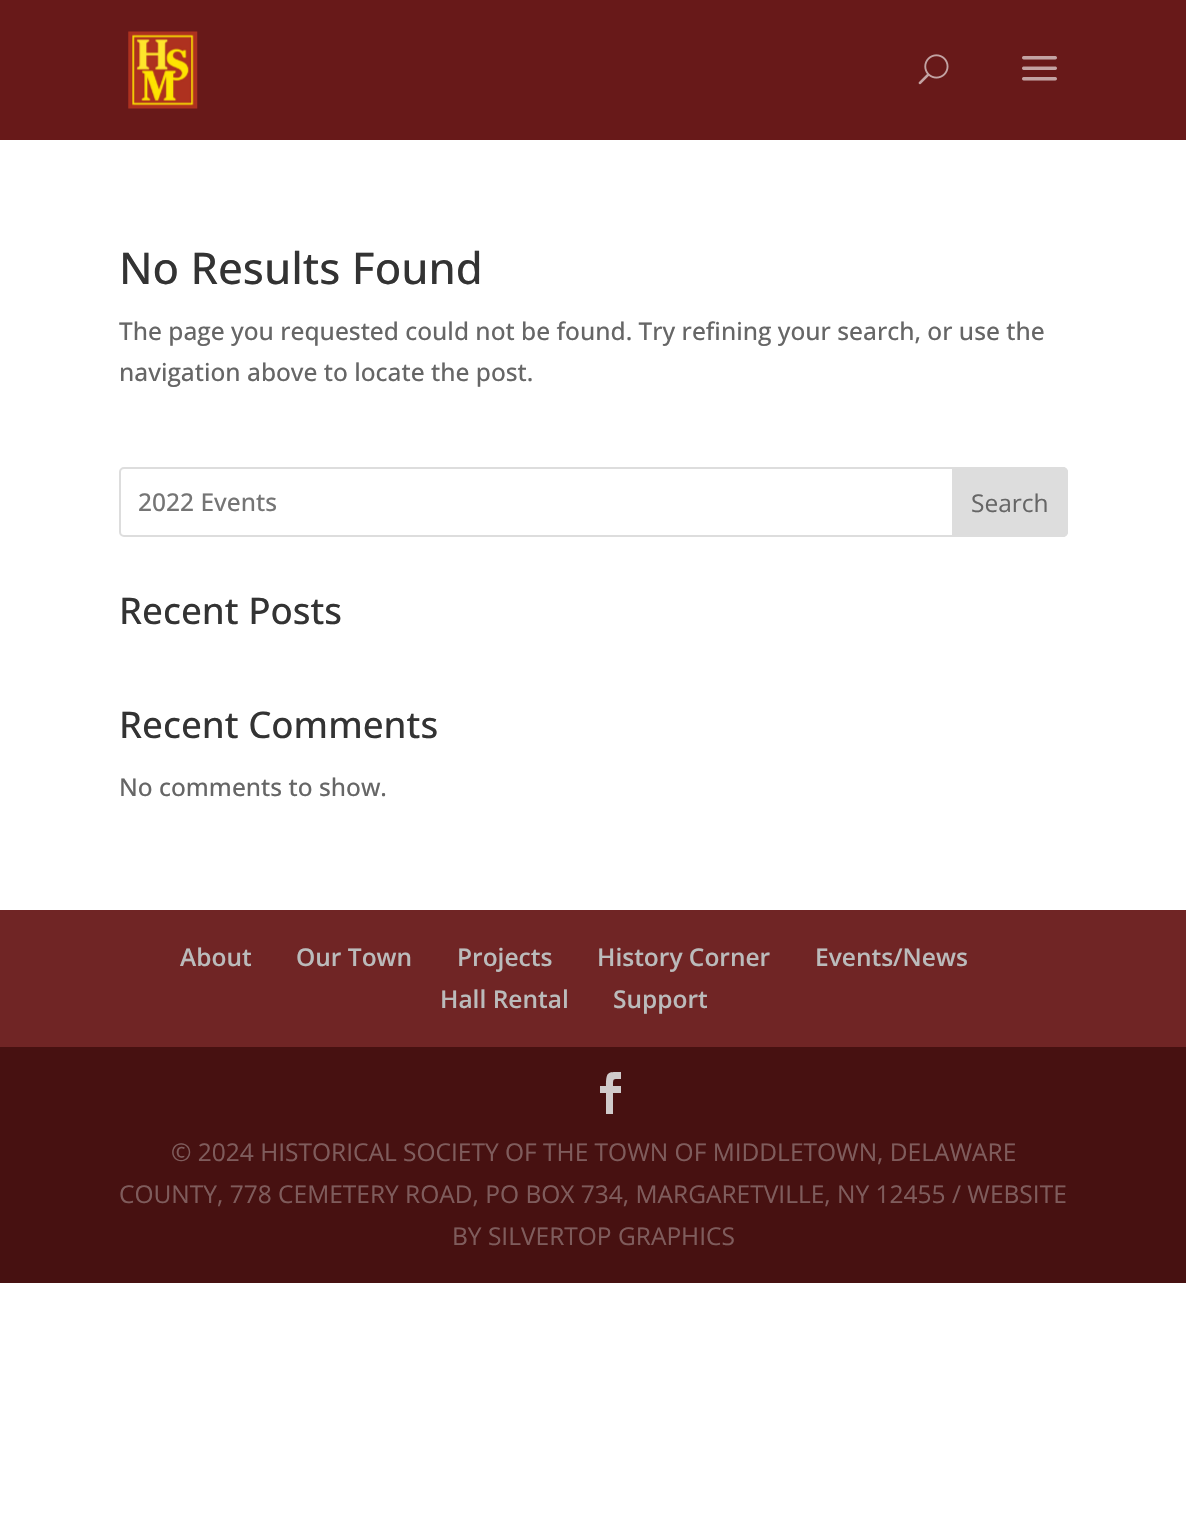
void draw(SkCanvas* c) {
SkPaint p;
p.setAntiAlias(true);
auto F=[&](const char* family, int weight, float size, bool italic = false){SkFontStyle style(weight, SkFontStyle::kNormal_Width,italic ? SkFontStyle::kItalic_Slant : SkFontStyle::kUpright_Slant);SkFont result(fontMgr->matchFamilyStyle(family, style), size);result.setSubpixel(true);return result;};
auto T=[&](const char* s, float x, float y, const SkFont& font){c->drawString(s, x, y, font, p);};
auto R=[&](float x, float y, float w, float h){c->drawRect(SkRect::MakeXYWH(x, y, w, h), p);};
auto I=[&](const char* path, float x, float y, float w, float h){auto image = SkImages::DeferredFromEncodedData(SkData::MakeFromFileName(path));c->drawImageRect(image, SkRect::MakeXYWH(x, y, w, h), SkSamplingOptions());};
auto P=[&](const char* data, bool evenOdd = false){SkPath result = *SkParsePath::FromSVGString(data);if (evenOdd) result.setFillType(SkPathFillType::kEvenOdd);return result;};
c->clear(0xffffffff);
p.setColor(0xff681919);
R(0,0,1186,140);
I("1.png",128,31,70,78);
I("2.png",918,54,31,31);
I("3.png",1022,56,35,25);
auto f1 = F("Open Sans",500,43.75);
p.setColor(0xff333333);
T("No Results Found",119,284,f1);
auto f2 = F("Open Sans",500,24.5);
p.setColor(0xff666666);
T("The page you requested could not be found. Try refining your search, or use the",119,340,f2);
T("navigation above to locate the post.",119,381,f2);
p.setStroke(true);
p.setStrokeWidth(2);
p.setColor(0xffdddddd);
c->drawRoundRect(SkRect::MakeXYWH(120,468,947,68),4,4,p);
p.setStroke(false);
p.setColor(0xff757575);
T("2022 Events",138,511,f2);
p.setColor(0xffdddddd);
c->drawPath(P("M953 468h110c2 0 4 2 4 4v60c0 2-2 4-4 4h-110z"),p);
p.setStroke(true);
c->drawPath(P("M953 468h110c2 0 4 2 4 4v60c0 2-2 4-4 4h-110z"),p);
auto f3 = F("Open Sans",400,24.5);
p.setStroke(false);
p.setColor(0xff666666);
T("Search",971,512,f3);
auto f4 = F("Open Sans",500,36.75);
p.setColor(0xff333333);
T("Recent Posts",119,624,f4);
T("Recent Comments",119,738,f4);
p.setColor(0xff666666);
T("No comments to show.",119,796,f2);
p.setColor(0xff702525);
R(0,910,1186,137);
auto f5 = F("Open Sans",600,24.5);
p.setColor(0xffbbbbbb);
T("About",180,966,f5);
T("Our Town",296,966,f5);
T("Projects",457,966,f5);
T("History Corner",597,966,f5);
T("Events/News",815,966,f5);
T("Hall Rental",440,1008,f5);
T("Support",613,1008,f5);
p.setColor(0xff471111);
R(0,1047,1186,236);
p.setColor(0xffd0cbcb);
c->drawPath(P("M606 1114h7v-21h8v-7h-8c0-8 0-7 8-7v-7c-13 0-15-1-15 14h-6v7h6z"),p);
p.setColor(0xff7f5c5c);
T("© 2024 HISTORICAL SOCIETY OF THE TOWN OF MIDDLETOWN, DELAWARE",171,1161,f3);
T("COUNTY, 778 CEMETERY ROAD, PO BOX 734, MARGARETVILLE, NY 12455 / WEBSITE",119,1203,f3);
T("BY SILVERTOP GRAPHICS",452,1245,f3);
}
